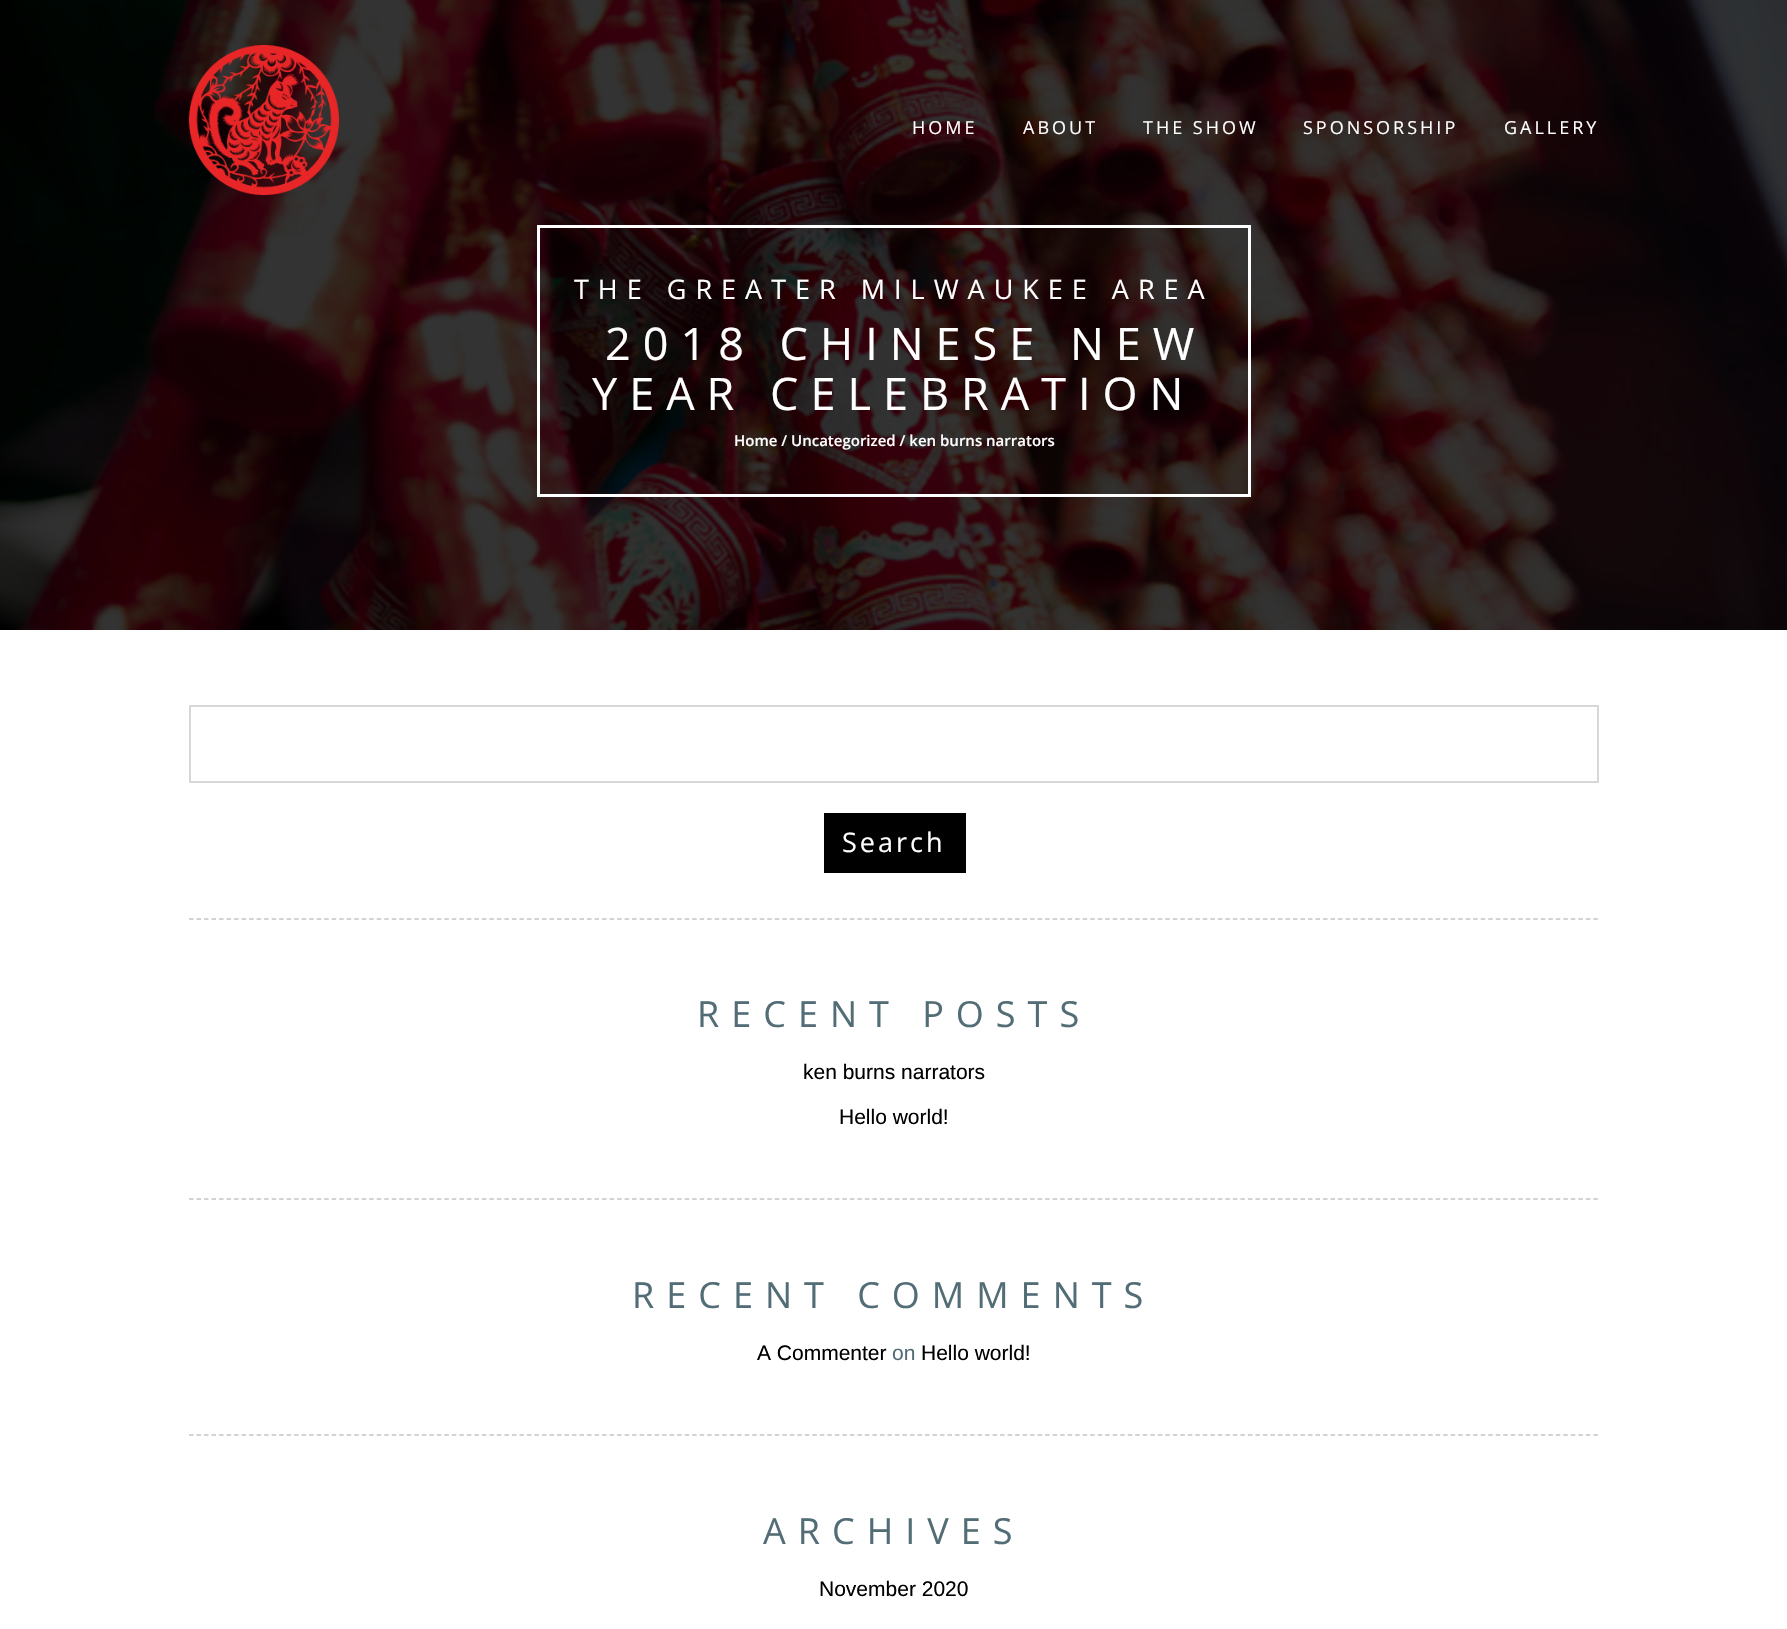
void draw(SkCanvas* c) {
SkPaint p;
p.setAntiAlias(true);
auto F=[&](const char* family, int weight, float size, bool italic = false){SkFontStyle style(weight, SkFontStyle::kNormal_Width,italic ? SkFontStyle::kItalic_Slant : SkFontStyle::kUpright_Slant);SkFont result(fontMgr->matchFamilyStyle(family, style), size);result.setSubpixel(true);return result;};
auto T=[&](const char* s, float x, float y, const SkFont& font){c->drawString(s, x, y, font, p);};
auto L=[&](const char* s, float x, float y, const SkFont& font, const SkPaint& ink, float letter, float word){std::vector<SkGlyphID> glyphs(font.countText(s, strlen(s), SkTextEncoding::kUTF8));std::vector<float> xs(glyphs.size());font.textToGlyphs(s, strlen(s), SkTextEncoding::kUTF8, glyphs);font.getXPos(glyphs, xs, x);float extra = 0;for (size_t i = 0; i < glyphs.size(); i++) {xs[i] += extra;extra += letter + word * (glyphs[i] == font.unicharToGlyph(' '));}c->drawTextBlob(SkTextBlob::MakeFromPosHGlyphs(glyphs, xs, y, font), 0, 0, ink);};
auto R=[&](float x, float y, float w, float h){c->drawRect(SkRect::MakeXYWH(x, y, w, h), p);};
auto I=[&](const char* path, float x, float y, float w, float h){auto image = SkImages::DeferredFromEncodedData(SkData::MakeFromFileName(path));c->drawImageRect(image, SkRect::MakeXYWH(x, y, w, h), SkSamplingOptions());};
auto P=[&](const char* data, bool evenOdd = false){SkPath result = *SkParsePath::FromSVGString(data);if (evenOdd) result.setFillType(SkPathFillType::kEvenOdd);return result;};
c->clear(0xffffffff);
I("2.png",0,0,1787,630);
I("1.png",189,45,150,150);
auto f1 = F("Open Sans",400,18);
p.setColor(0xffffffff);
L("HOME",912,134,f1,p,3,0);
L("ABOUT",1023,134,f1,p,3,0);
L("THE SHOW",1143,134,f1,p,3,0);
L("SPONSORSHIP",1303,134,f1,p,3,0);
L("GALLERY",1504,134,f1,p,3,0);
p.setStroke(true);
p.setStrokeWidth(3);
c->drawRect(SkRect::MakeXYWH(538.5,226.5,711,269),p);
auto f2 = F("Open Sans",400,27);
p.setStroke(false);
L("THE GREATER MILWAUKEE AREA",574,299,f2,p,9,0);
auto f3 = F("Open Sans",400,45);
L("2018 CHINESE NEW",605,360,f3,p,12,0);
L("YEAR CELEBRATION",592,410,f3,p,12,0);
auto f4 = F("Open Sans",600,15);
T("Home / Uncategorized / ken burns narrators",734,446,f4);
p.setStroke(true);
p.setStrokeWidth(1.5);
p.setColor(0xffc5c5c5);
p.setPathEffect(SkDashPathEffect::Make({{4.5f,3.01f}}, 0));
c->drawPath(P("M189 919h1410"),p);
p.setPathEffect(nullptr);
p.setStrokeWidth(2);
p.setColor(0xffd8d8d8);
c->drawRect(SkRect::MakeXYWH(190,706,1408,76),p);
p.setStroke(false);
p.setColor(0xff000000);
R(824,813,142,60);
p.setColor(0xffffffff);
L("Search",842,852,f2,p,3,0);
p.setStroke(true);
p.setStrokeWidth(1.5);
p.setColor(0xffc5c5c5);
p.setPathEffect(SkDashPathEffect::Make({{4.5f,3.01f}}, 0));
c->drawPath(P("M189 1199h1410"),p);
p.setPathEffect(nullptr);
auto f5 = F("Open Sans",400,36);
p.setStroke(false);
p.setColor(0xff536d76);
L("RECENT POSTS",697,1027,f5,p,12,0);
auto f6 = F("Liberation Sans",400,21);
p.setColor(0xff000000);
T("ken burns narrators",803,1079,f6);
T("Hello world!",839,1124,f6);
p.setStroke(true);
p.setColor(0xffc5c5c5);
p.setPathEffect(SkDashPathEffect::Make({{4.5f,3.01f}}, 0));
c->drawPath(P("M189 1435h1410"),p);
p.setPathEffect(nullptr);
p.setStroke(false);
p.setColor(0xff536d76);
L("RECENT COMMENTS",632,1308,f5,p,12,0);
p.setColor(0xff000000);
T("A Commenter",757,1360,f6);
p.setColor(0xff536d76);
T("on",892,1360,f6);
p.setColor(0xff000000);
T("Hello world!",921,1360,f6);
p.setColor(0xff536d76);
L("ARCHIVES",763,1544,f5,p,12,0);
p.setColor(0xff000000);
T("November 2020",819,1596,f6);
}
